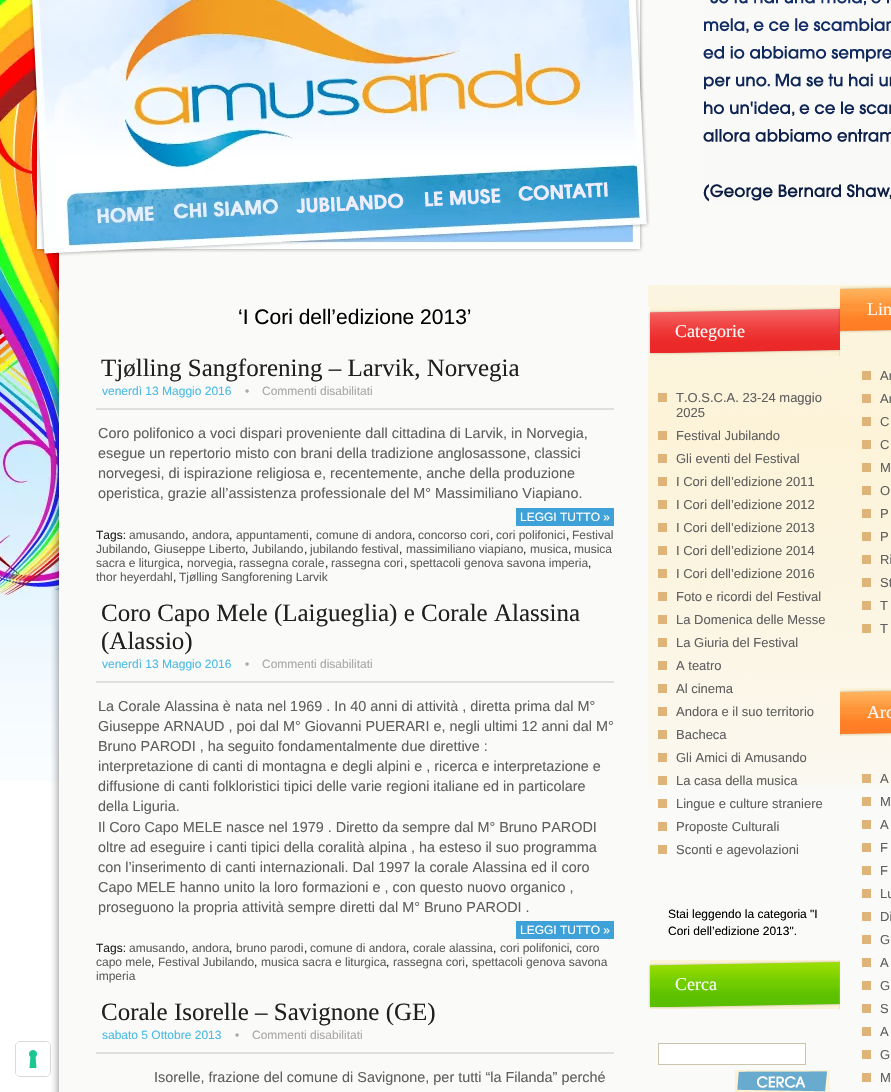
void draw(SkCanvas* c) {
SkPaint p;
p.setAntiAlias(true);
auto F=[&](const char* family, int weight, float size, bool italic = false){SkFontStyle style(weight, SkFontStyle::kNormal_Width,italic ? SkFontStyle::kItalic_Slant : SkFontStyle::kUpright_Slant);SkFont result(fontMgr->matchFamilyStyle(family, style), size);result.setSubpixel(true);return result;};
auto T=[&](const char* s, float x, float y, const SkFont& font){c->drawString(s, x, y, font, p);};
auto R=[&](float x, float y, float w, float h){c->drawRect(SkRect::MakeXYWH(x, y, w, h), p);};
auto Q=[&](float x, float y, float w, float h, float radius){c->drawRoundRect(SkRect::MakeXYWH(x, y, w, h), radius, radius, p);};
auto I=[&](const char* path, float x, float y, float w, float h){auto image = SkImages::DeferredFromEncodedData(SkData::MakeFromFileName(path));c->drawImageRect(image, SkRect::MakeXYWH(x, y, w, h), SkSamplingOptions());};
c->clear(0xffffffff);
I("1.png",0,596,59,185);
p.setStroke(true);
p.setStrokeWidth(1);
p.setColor(0xffd9d9d9);
c->drawRoundRect(SkRect::MakeXYWH(15.5,1041.5,35,35),4.5,4.5,p);
p.setStroke(false);
p.setColor(0xffffffff);
Q(16,1042,34,34,4);
I("2.png",29,1050,8,18);
I("3.png",0,0,59,596);
I("10.png",51,252,8,840);
p.setColor(0xfffafaf8);
R(59,0,832,1092);
I("4.png",29,0,621,257);
I("5.png",94,205,63,20);
I("6.png",172,198,108,21);
I("7.png",295,192,111,22);
I("8.png",421,185,81,24);
I("9.png",517,180,91,23);
I("11.png",703,0,188,202);
auto f1 = F("Liberation Sans",400,21);
p.setColor(0xff000000);
T("‘I Cori dell’edizione 2013’",238,324,f1);
p.setColor(0xffdfdfdb);
R(96,408,518,2);
auto f2 = F("Liberation Serif",400,25);
p.setColor(0xff202020);
T("Tjølling Sangforening – Larvik, Norvegia",101,376,f2);
auto f3 = F("Liberation Sans",400,12);
p.setColor(0xff4bbbe5);
T("venerdì 13 Maggio 2016",102,395,f3);
p.setColor(0xffaaa7a7);
T("•",245,395,f3);
T("Commenti disabilitati",262,395,f3);
auto f4 = F("Liberation Sans",400,14.4);
p.setColor(0xff5f5f5f);
T("Coro polifonico a voci dispari proveniente dall cittadina di Larvik, in Norvegia,",98,438,f4);
T("esegue un repertorio misto con brani della tradizione anglosassone, classici",98,458,f4);
T("norvegesi, di ispirazione religiosa e, recentemente, anche della produzione",98,478,f4);
T("operistica, grazie all’assistenza professionale del M° Massimiliano Viapiano.",98,498,f4);
p.setColor(0xff3ea1d7);
R(516,508,98,18);
p.setColor(0xffffffff);
T("LEGGI TUTTO »",520,521,f3);
p.setColor(0xff202020);
T("Tags:",96,539,f3);
p.setColor(0xff5f5f5f);
T("amusando",129,539,f3);
p.setColor(0xff202020);
T(",",185,539,f3);
p.setColor(0xff5f5f5f);
T("andora",192,539,f3);
p.setColor(0xff202020);
T(",",229,539,f3);
p.setColor(0xff5f5f5f);
T("appuntamenti",236,539,f3);
p.setColor(0xff202020);
T(",",309,539,f3);
p.setColor(0xff5f5f5f);
T("comune di andora",316,539,f3);
p.setColor(0xff202020);
T(",",412,539,f3);
p.setColor(0xff5f5f5f);
T("concorso cori",418,539,f3);
p.setColor(0xff202020);
T(",",490,539,f3);
p.setColor(0xff5f5f5f);
T("cori polifonici",496,539,f3);
p.setColor(0xff202020);
T(",",566,539,f3);
p.setColor(0xff5f5f5f);
T("Festival",572,539,f3);
T("Jubilando",96,553,f3);
p.setColor(0xff202020);
T(",",147,553,f3);
p.setColor(0xff5f5f5f);
T("Giuseppe Liberto",154,553,f3);
p.setColor(0xff202020);
T(",",245,553,f3);
p.setColor(0xff5f5f5f);
T("Jubilando",252,553,f3);
p.setColor(0xff202020);
T(",",304,553,f3);
p.setColor(0xff5f5f5f);
T("jubilando festival",310,553,f3);
p.setColor(0xff202020);
T(",",399,553,f3);
p.setColor(0xff5f5f5f);
T("massimiliano viapiano",406,553,f3);
p.setColor(0xff202020);
T(",",523,553,f3);
p.setColor(0xff5f5f5f);
T("musica",530,553,f3);
p.setColor(0xff202020);
T(",",568,553,f3);
p.setColor(0xff5f5f5f);
T("musica",574,553,f3);
T("sacra e liturgica",96,567,f3);
p.setColor(0xff202020);
T(",",180,567,f3);
p.setColor(0xff5f5f5f);
T("norvegia",187,567,f3);
p.setColor(0xff202020);
T(",",233,567,f3);
p.setColor(0xff5f5f5f);
T("rassegna corale",239,567,f3);
p.setColor(0xff202020);
T(",",325,567,f3);
p.setColor(0xff5f5f5f);
T("rassegna cori",331,567,f3);
p.setColor(0xff202020);
T(",",404,567,f3);
p.setColor(0xff5f5f5f);
T("spettacoli genova savona imperia",410,567,f3);
p.setColor(0xff202020);
T(",",588,567,f3);
p.setColor(0xff5f5f5f);
T("thor heyerdahl",96,581,f3);
p.setColor(0xff202020);
T(",",173,581,f3);
p.setColor(0xff5f5f5f);
T("Tjølling Sangforening Larvik",179,581,f3);
p.setColor(0xffdfdfdb);
R(96,681,518,2);
p.setColor(0xff202020);
T("Coro Capo Mele (Laigueglia) e Corale Alassina",101,621,f2);
T("(Alassio)",101,649,f2);
p.setColor(0xff4bbbe5);
T("venerdì 13 Maggio 2016",102,668,f3);
p.setColor(0xffaaa7a7);
T("•",245,668,f3);
T("Commenti disabilitati",262,668,f3);
p.setColor(0xff5f5f5f);
T("La Corale Alassina è nata nel 1969 . In 40 anni di attività , diretta prima dal M°",98,711,f4);
T("Giuseppe ARNAUD , poi dal M° Giovanni PUERARI e, negli ultimi 12 anni dal M°",98,731,f4);
T("Bruno PARODI , ha seguito fondamentalmente due direttive :",98,751,f4);
T("interpretazione di canti di montagna e degli alpini e , ricerca e interpretazione e",98,771,f4);
T("diffusione di canti folkloristici tipici delle varie regioni italiane ed in particolare",98,791,f4);
T("della Liguria.",98,811,f4);
T("Il Coro Capo MELE nasce nel 1979 . Diretto da sempre dal M° Bruno PARODI",98,832,f4);
T("oltre ad eseguire i canti tipici della coralità alpina , ha esteso il suo programma",98,852,f4);
T("con l’inserimento di canti internazionali. Dal 1997 la corale Alassina ed il coro",98,872,f4);
T("Capo MELE hanno unito la loro formazioni e , con questo nuovo organico ,",98,892,f4);
T("proseguono la propria attività sempre diretti dal M° Bruno PARODI .",98,912,f4);
p.setColor(0xff3ea1d7);
R(516,921,98,18);
p.setColor(0xffffffff);
T("LEGGI TUTTO »",520,934,f3);
p.setColor(0xff202020);
T("Tags:",96,952,f3);
p.setColor(0xff5f5f5f);
T("amusando",129,952,f3);
p.setColor(0xff202020);
T(",",185,952,f3);
p.setColor(0xff5f5f5f);
T("andora",192,952,f3);
p.setColor(0xff202020);
T(",",229,952,f3);
p.setColor(0xff5f5f5f);
T("bruno parodi",236,952,f3);
p.setColor(0xff202020);
T(",",304,952,f3);
p.setColor(0xff5f5f5f);
T("comune di andora",310,952,f3);
p.setColor(0xff202020);
T(",",406,952,f3);
p.setColor(0xff5f5f5f);
T("corale alassina",413,952,f3);
p.setColor(0xff202020);
T(",",493,952,f3);
p.setColor(0xff5f5f5f);
T("cori polifonici",500,952,f3);
p.setColor(0xff202020);
T(",",569,952,f3);
p.setColor(0xff5f5f5f);
T("coro",576,952,f3);
T("capo mele",96,966,f3);
p.setColor(0xff202020);
T(",",151,966,f3);
p.setColor(0xff5f5f5f);
T("Festival Jubilando",158,966,f3);
p.setColor(0xff202020);
T(",",254,966,f3);
p.setColor(0xff5f5f5f);
T("musica sacra e liturgica",261,966,f3);
p.setColor(0xff202020);
T(",",386,966,f3);
p.setColor(0xff5f5f5f);
T("rassegna cori",393,966,f3);
p.setColor(0xff202020);
T(",",465,966,f3);
p.setColor(0xff5f5f5f);
T("spettacoli genova savona",472,966,f3);
T("imperia",96,980,f3);
p.setColor(0xffdfdfdb);
R(96,1052,518,2);
p.setColor(0xff202020);
T("Corale Isorelle – Savignone (GE)",101,1020,f2);
p.setColor(0xff4bbbe5);
T("sabato 5 Ottobre 2013",102,1039,f3);
p.setColor(0xffaaa7a7);
T("•",235,1039,f3);
T("Commenti disabilitati",252,1039,f3);
p.setColor(0xff5f5f5f);
T("Isorelle, frazione del comune di Savignone, per tutti “la Filanda” perché",154,1082,f4);
I("12.png",648,285,243,500);
I("13.png",648,329,192,3);
I("14.png",648,307,192,22);
I("15.png",648,332,192,24);
auto f5 = F("Liberation Serif",400,18);
p.setColor(0xfffafaf8);
T("Categorie",675,337,f5);
p.setColor(0xffdeb479);
R(658,393,9,9);
auto f6 = F("Liberation Sans",400,13);
p.setColor(0xff5f5f5f);
T("T.O.S.C.A. 23-24 maggio",676,402,f6);
T("2025",676,417,f6);
p.setColor(0xffdeb479);
R(658,431,9,9);
p.setColor(0xff5f5f5f);
T("Festival Jubilando",676,440,f6);
p.setColor(0xffdeb479);
R(658,454,9,9);
p.setColor(0xff5f5f5f);
T("Gli eventi del Festival",676,463,f6);
p.setColor(0xffdeb479);
R(658,477,9,9);
p.setColor(0xff5f5f5f);
T("I Cori dell’edizione 2011",676,486,f6);
p.setColor(0xffdeb479);
R(658,500,9,9);
p.setColor(0xff5f5f5f);
T("I Cori dell’edizione 2012",676,509,f6);
p.setColor(0xffdeb479);
R(658,523,9,9);
p.setColor(0xff5f5f5f);
T("I Cori dell’edizione 2013",676,532,f6);
p.setColor(0xffdeb479);
R(658,546,9,9);
p.setColor(0xff5f5f5f);
T("I Cori dell’edizione 2014",676,555,f6);
p.setColor(0xffdeb479);
R(658,569,9,9);
p.setColor(0xff5f5f5f);
T("I Cori dell’edizione 2016",676,578,f6);
p.setColor(0xffdeb479);
R(658,592,9,9);
p.setColor(0xff5f5f5f);
T("Foto e ricordi del Festival",676,601,f6);
p.setColor(0xffdeb479);
R(658,615,9,9);
p.setColor(0xff5f5f5f);
T("La Domenica delle Messe",676,624,f6);
p.setColor(0xffdeb479);
R(658,638,9,9);
p.setColor(0xff5f5f5f);
T("La Giuria del Festival",676,647,f6);
p.setColor(0xffdeb479);
R(658,661,9,9);
p.setColor(0xff5f5f5f);
T("A teatro",676,670,f6);
p.setColor(0xffdeb479);
R(658,684,9,9);
p.setColor(0xff5f5f5f);
T("Al cinema",676,693,f6);
p.setColor(0xffdeb479);
R(658,707,9,9);
p.setColor(0xff5f5f5f);
T("Andora e il suo territorio",676,716,f6);
p.setColor(0xffdeb479);
R(658,730,9,9);
p.setColor(0xff5f5f5f);
T("Bacheca",676,739,f6);
p.setColor(0xffdeb479);
R(658,753,9,9);
p.setColor(0xff5f5f5f);
T("Gli Amici di Amusando",676,762,f6);
p.setColor(0xffdeb479);
R(658,776,9,9);
p.setColor(0xff5f5f5f);
T("La casa della musica",676,785,f6);
p.setColor(0xffdeb479);
R(658,799,9,9);
p.setColor(0xff5f5f5f);
T("Lingue e culture straniere",676,808,f6);
p.setColor(0xffdeb479);
R(658,822,9,9);
p.setColor(0xff5f5f5f);
T("Proposte Culturali",676,831,f6);
p.setColor(0xffdeb479);
R(658,845,9,9);
p.setColor(0xff5f5f5f);
T("Sconti e agevolazioni",676,854,f6);
p.setColor(0xff000000);
T("Stai leggendo la categoria \"I",668,918,f3);
T("Cori dell’edizione 2013\".",668,935,f3);
I("16.png",648,980,192,6);
I("17.png",648,960,192,20);
I("18.png",648,986,192,23);
p.setColor(0xfffafaf8);
T("Cerca",675,990,f5);
p.setColor(0xffffffff);
c->drawRect(SkRect::MakeXYWH(658.5,1043.5,147,21),p);
p.setStroke(true);
p.setColor(0xffcac6ab);
c->drawRect(SkRect::MakeXYWH(658.5,1043.5,147,21),p);
I("19.png",735,1070,95,22);
p.setStroke(false);
p.setColor(0xffff9338);
R(840,304,51,7);
I("20.png",840,285,51,19);
I("21.png",840,311,51,22);
p.setColor(0xfffafaf8);
T("Lin",867,315,f5);
p.setColor(0xffdeb479);
R(862,371,9,9);
p.setColor(0xff5f5f5f);
T("Ar",880,380,f6);
p.setColor(0xffdeb479);
R(862,394,9,9);
p.setColor(0xff5f5f5f);
T("Ar",880,403,f6);
p.setColor(0xffdeb479);
R(862,417,9,9);
p.setColor(0xff5f5f5f);
T("C",880,426,f6);
p.setColor(0xffdeb479);
R(862,440,9,9);
p.setColor(0xff5f5f5f);
T("C",880,449,f6);
p.setColor(0xffdeb479);
R(862,463,9,9);
p.setColor(0xff5f5f5f);
T("M",880,472,f6);
p.setColor(0xffdeb479);
R(862,486,9,9);
p.setColor(0xff5f5f5f);
T("O",880,495,f6);
p.setColor(0xffdeb479);
R(862,509,9,9);
p.setColor(0xff5f5f5f);
T("P",880,518,f6);
p.setColor(0xffdeb479);
R(862,532,9,9);
p.setColor(0xff5f5f5f);
T("P",880,541,f6);
p.setColor(0xffdeb479);
R(862,555,9,9);
p.setColor(0xff5f5f5f);
T("Ri",880,564,f6);
p.setColor(0xffdeb479);
R(862,578,9,9);
p.setColor(0xff5f5f5f);
T("St",880,587,f6);
p.setColor(0xffdeb479);
R(862,601,9,9);
p.setColor(0xff5f5f5f);
T("T",880,610,f6);
p.setColor(0xffdeb479);
R(862,624,9,9);
p.setColor(0xff5f5f5f);
T("T",880,633,f6);
p.setColor(0xffff9338);
R(840,707,51,7);
I("20.png",840,688,51,19);
I("21.png",840,714,51,22);
p.setColor(0xfffafaf8);
T("Arc",867,718,f5);
p.setColor(0xffdeb479);
R(862,774,9,9);
p.setColor(0xff5f5f5f);
T("A",880,783,f6);
p.setColor(0xffdeb479);
R(862,797,9,9);
p.setColor(0xff5f5f5f);
T("M",880,806,f6);
p.setColor(0xffdeb479);
R(862,820,9,9);
p.setColor(0xff5f5f5f);
T("A",880,829,f6);
p.setColor(0xffdeb479);
R(862,843,9,9);
p.setColor(0xff5f5f5f);
T("F",880,852,f6);
p.setColor(0xffdeb479);
R(862,866,9,9);
p.setColor(0xff5f5f5f);
T("F",880,875,f6);
p.setColor(0xffdeb479);
R(862,889,9,9);
p.setColor(0xff5f5f5f);
T("Lu",880,898,f6);
p.setColor(0xffdeb479);
R(862,912,9,9);
p.setColor(0xff5f5f5f);
T("Di",880,921,f6);
p.setColor(0xffdeb479);
R(862,935,9,9);
p.setColor(0xff5f5f5f);
T("G",880,944,f6);
p.setColor(0xffdeb479);
R(862,958,9,9);
p.setColor(0xff5f5f5f);
T("A",880,967,f6);
p.setColor(0xffdeb479);
R(862,981,9,9);
p.setColor(0xff5f5f5f);
T("G",880,990,f6);
p.setColor(0xffdeb479);
R(862,1004,9,9);
p.setColor(0xff5f5f5f);
T("S",880,1013,f6);
p.setColor(0xffdeb479);
R(862,1027,9,9);
p.setColor(0xff5f5f5f);
T("A",880,1036,f6);
p.setColor(0xffdeb479);
R(862,1050,9,9);
p.setColor(0xff5f5f5f);
T("G",880,1059,f6);
p.setColor(0xffdeb479);
R(862,1073,9,9);
p.setColor(0xff5f5f5f);
T("M",880,1082,f6);
}
